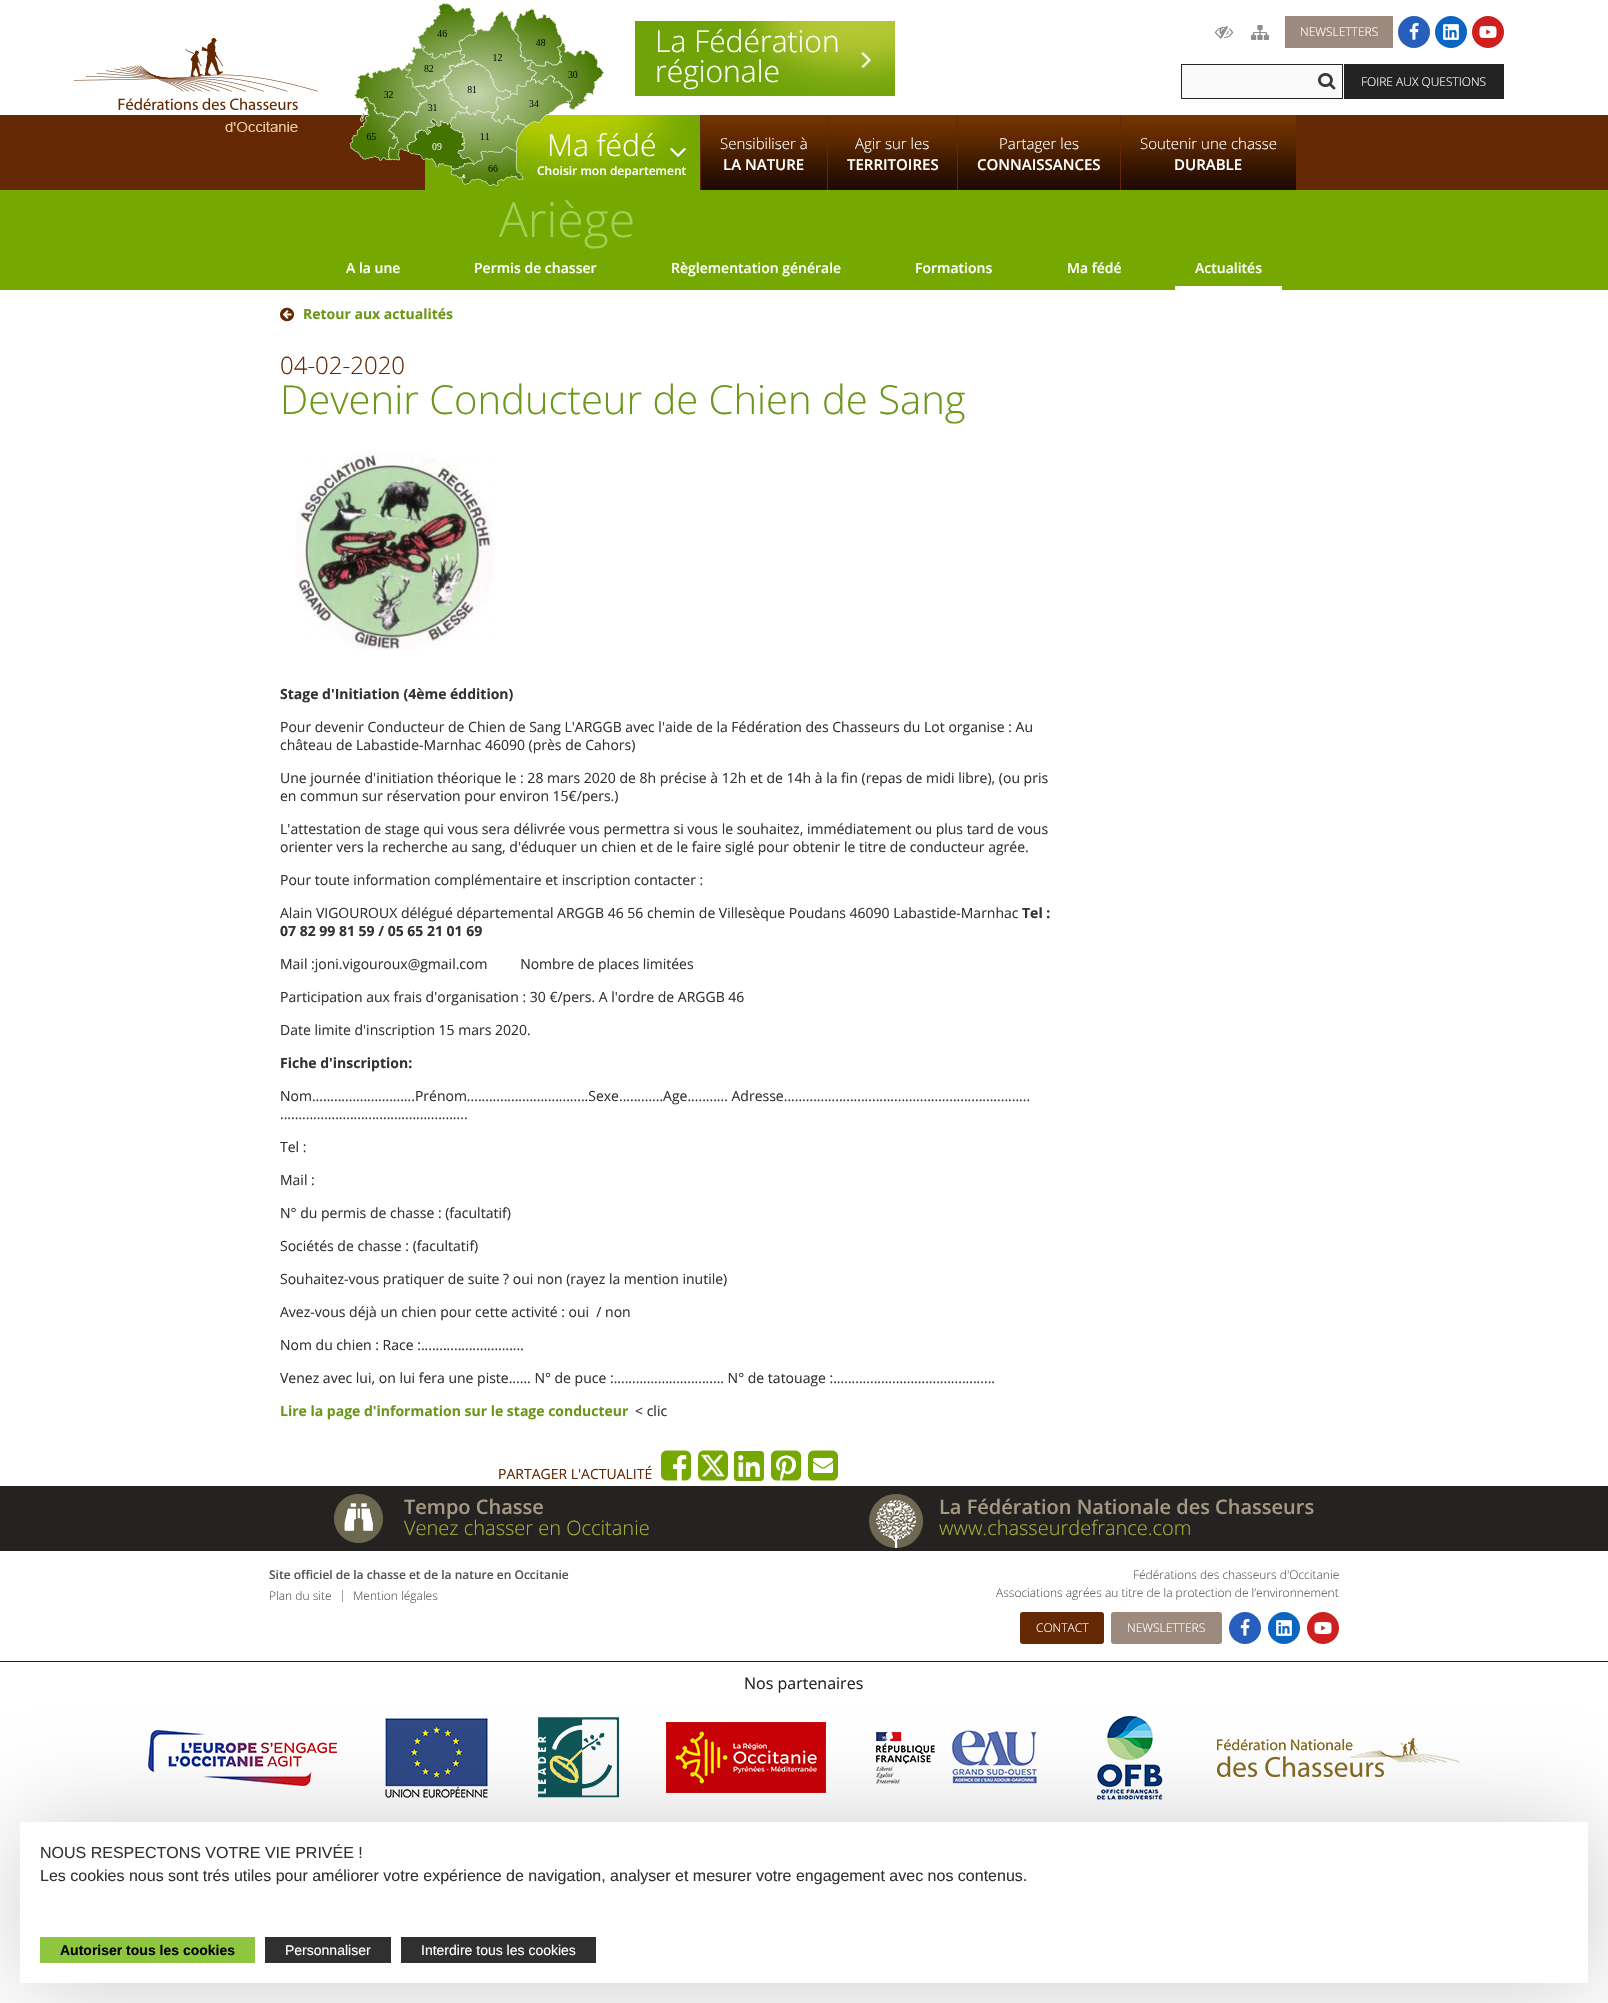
void draw(SkCanvas* c) {
SkPaint p;
p.setAntiAlias(true);
auto F=[&](const char* family, int weight, float size, bool italic = false){SkFontStyle style(weight, SkFontStyle::kNormal_Width,italic ? SkFontStyle::kItalic_Slant : SkFontStyle::kUpright_Slant);SkFont result(fontMgr->matchFamilyStyle(family, style), size);result.setSubpixel(true);return result;};
auto T=[&](const char* s, float x, float y, const SkFont& font){c->drawString(s, x, y, font, p);};
auto R=[&](float x, float y, float w, float h){c->drawRect(SkRect::MakeXYWH(x, y, w, h), p);};
auto Q=[&](float x, float y, float w, float h, float radius){c->drawRoundRect(SkRect::MakeXYWH(x, y, w, h), radius, radius, p);};
auto I=[&](const char* path, float x, float y, float w, float h){auto image = SkImages::DeferredFromEncodedData(SkData::MakeFromFileName(path));c->drawImageRect(image, SkRect::MakeXYWH(x, y, w, h), SkSamplingOptions());};
auto P=[&](const char* data, bool evenOdd = false){SkPath result = *SkParsePath::FromSVGString(data);if (evenOdd) result.setFillType(SkPathFillType::kEvenOdd);return result;};
c->clear(0xffffffff);
p.setColor(0xff642804);
R(0,115,1608,75);
I("1.png",635,21,260,75);
auto f1 = F("Open Sans",300,30);
p.setColor(0xffffffff);
T("La Fédération",655,52,f1);
T("régionale",655,82,f1);
I("3.png",425,115,275,75);
T("Ma fédé",547,156,f1);
auto f2 = F("Open Sans",600,12);
T("Choisir mon departement",537,175,f2);
I("2.png",349,3,255,183);
I("4.png",670,148,16,9);
I("5.png",701,115,126,75);
auto f3 = F("Open Sans",300,15);
T("Sensibiliser à",720,149,f3);
auto f4 = F("Open Sans",600,15);
T("LA NATURE",723,170,f4);
I("6.png",828,115,129,75);
T("Agir sur les",855,149,f3);
T("TERRITOIRES",847,170,f4);
I("7.png",958,115,162,75);
T("Partager les",999,149,f3);
T("CONNAISSANCES",977,170,f4);
I("8.png",1121,115,175,75);
T("Soutenir une chasse",1140,149,f3);
T("DURABLE",1174,170,f4);
I("9.png",74,38,244,94);
I("10.png",1214,26,20,13);
I("11.png",1250,25,20,15);
p.setColor(0xff9d8a7e);
R(1285,16,108,32);
auto f5 = F("Open Sans",300,12);
p.setColor(0xffffffff);
T("NEWSLETTERS",1300,36,f5);
p.setColor(0xff285fbc);
c->drawCircle(1414,32,16,p);
I("12.png",1409,23,10,17);
p.setColor(0xff0a66c2);
c->drawCircle(1451,32,16,p);
I("13.png",1443,24,16,16);
p.setColor(0xffcd201f);
c->drawCircle(1488,32,16,p);
I("14.png",1479,26,18,12);
p.setStroke(true);
p.setStrokeWidth(1);
p.setColor(0xff232323);
c->drawRect(SkRect::MakeXYWH(1181.5,64.5,161,34),p);
p.setStroke(false);
p.setColor(0xfff9f9f9);
R(1182,65,160,33);
I("15.png",1318,73,18,17);
p.setColor(0xff232323);
R(1344,64,160,35);
p.setColor(0xffffffff);
T("FOIRE AUX QUESTIONS",1361,86,f5);
p.setColor(0xff75a800);
R(0,190,1608,100);
auto f6 = F("Open Sans",300,48);
p.setColor(0xffa0d159);
T("Ariège",499,237,f6);
auto f7 = F("Open Sans",600,14);
p.setColor(0xffffffff);
T("A la une",346,273,f7);
T("Permis de chasser",474,273,f7);
T("Règlementation générale",671,273,f7);
T("Formations",915,273,f7);
T("Ma fédé",1067,273,f7);
R(1175,286,107,4);
T("Actualités",1195,273,f7);
I("16.png",280,307,14,15);
auto f8 = F("Open Sans",700,14);
p.setColor(0xff6c971a);
T("Retour aux actualités",303,319,f8);
auto f9 = F("Open Sans",300,24);
p.setColor(0xff642804);
T("04-02-2020",280,374,f9);
auto f10 = F("Open Sans",300,40);
p.setColor(0xff6c971a);
T("Devenir Conducteur de Chien de Sang",280,414,f10);
I("17.png",296,450,199,200);
p.setColor(0xff333333);
T("Stage d'Initiation (4ème éddition)",280,699,f8);
auto f11 = F("Open Sans",400,14);
T("Pour devenir Conducteur de Chien de Sang L'ARGGB avec l'aide de la Fédération des Chasseurs du Lot organise : Au",280,732,f11);
T("château de Labastide-Marnhac 46090 (près de Cahors)",280,750,f11);
T("Une journée d'initiation théorique le : 28 mars 2020 de 8h précise à 12h et de 14h à la fin (repas de midi libre), (ou pris",280,783,f11);
T("en commun sur réservation pour environ 15€/pers.)",280,801,f11);
T("L'attestation de stage qui vous sera délivrée vous permettra si vous le souhaitez, immédiatement ou plus tard de vous",280,834,f11);
T("orienter vers la recherche au sang, d'éduquer un chien et de le faire siglé pour obtenir le titre de conducteur agrée.",280,852,f11);
T("Pour toute information complémentaire et inscription contacter :",280,885,f11);
T("Alain VIGOUROUX délégué départemental ARGGB 46 56 chemin de Villesèque Poudans 46090 Labastide-Marnhac",280,918,f11);
T("Tel :",1022,918,f8);
T("07 82 99 81 59 / 05 65 21 01 69",280,936,f8);
T("Mail :joni.vigouroux@gmail.com         Nombre de places limitées",280,969,f11);
T("Participation aux frais d'organisation : 30 €/pers. A l'ordre de ARGGB 46",280,1002,f11);
T("Date limite d'inscription 15 mars 2020.",280,1035,f11);
T("Fiche d'inscription:",280,1068,f8);
T("Nom............................Prénom.................................Sexe............Age........... Adresse...................................................................",280,1101,f11);
T("...................................................",280,1119,f11);
T("Tel :",280,1152,f11);
T("Mail :",280,1185,f11);
T("N° du permis de chasse : (facultatif)",280,1218,f11);
T("Sociétés de chasse : (facultatif)",280,1251,f11);
T("Souhaitez-vous pratiquer de suite ? oui non (rayez la mention inutile)",280,1284,f11);
T("Avez-vous déjà un chien pour cette activité : oui  / non",280,1317,f11);
T("Nom du chien : Race :............................",280,1350,f11);
T("Venez avec lui, on lui fera une piste...... N° de puce :.............................. N° de tatouage :............................................",280,1383,f11);
p.setColor(0xff6c971a);
T("Lire la page d'information sur le stage conducteur",280,1416,f8);
p.setColor(0xff333333);
T("< clic",635,1416,f11);
p.setColor(0xff642804);
T("PARTAGER L'ACTUALITÉ",498,1479,f11);
I("18.png",661,1450,30,31);
I("19.png",698,1450,30,31);
I("20.png",734,1451,30,30);
I("21.png",771,1450,30,31);
I("22.png",808,1450,30,31);
p.setColor(0xff252321);
R(0,1486,1608,65);
I("23.png",334,1494,49,49);
auto f12 = F("Open Sans",600,20);
p.setColor(0xffa49983);
T("Tempo Chasse",404,1514,f12);
auto f13 = F("Open Sans",300,20);
p.setColor(0xffa0b436);
T("Venez chasser en Occitanie",404,1535,f13);
I("24.png",869,1494,54,54);
p.setColor(0xffa49983);
T("La Fédération Nationale des Chasseurs",939,1514,f12);
p.setColor(0xffa0b436);
T("www.chasseurdefrance.com",939,1535,f13);
p.setColor(0xff535353);
T("Site officiel de la chasse et de la nature en Occitanie",269,1579,f2);
T("Fédérations des chasseurs d'Occitanie",1133,1579,f5);
T("Associations agrées au titre de la protection de l’environnement",996,1597,f5);
p.setColor(0xff642804);
Q(1020,1612,84,32,3);
p.setColor(0xffffffff);
T("CONTACT",1036,1632,f5);
p.setColor(0xff9d8a7e);
Q(1111,1612,111,32,3);
p.setColor(0xffffffff);
T("NEWSLETTERS",1127,1632,f5);
p.setColor(0xff285fbc);
c->drawCircle(1245,1628,16,p);
I("12.png",1240,1619,10,17);
p.setColor(0xff0a66c2);
c->drawCircle(1284,1628,16,p);
I("13.png",1276,1620,16,16);
p.setColor(0xffcd201f);
c->drawCircle(1323,1628,16,p);
I("14.png",1314,1622,18,12);
p.setColor(0xff535353);
T("Plan du site",269,1600,f5);
p.setColor(0xffa3a3a3);
R(342,1590,1,12);
p.setColor(0xff535353);
T("Mention légales",353,1600,f5);
p.setColor(0xff252321);
R(0,1661,1608,1);
auto f14 = F("Open Sans",400,16);
p.setColor(0xff222222);
T("Nos partenaires",744,1689,f14);
I("25.png",148,1730,189,56);
I("26.png",385,1718,103,80);
I("27.png",538,1717,82,81);
I("28.png",666,1722,160,71);
I("29.png",876,1730,161,54);
I("30.png",1097,1715,66,85);
I("31.png",1217,1738,243,39);
c->save();
c->clipPath(P("M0 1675h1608v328h-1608zm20 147h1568v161h-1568z",true),true);
p.setColor(0x33000000);
p.setMaskFilter(SkMaskFilter::MakeBlur(kNormal_SkBlurStyle, 50));
c->drawRect(SkRect::MakeXYWH(24,1826,1568,161),p);
p.setMaskFilter(nullptr);
c->restore();
auto f15 = F("Liberation Sans",400,16);
p.setColor(0xff333333);
T("NOUS RESPECTONS VOTRE VIE PRIVÉE !",40,1858,f15);
T("Les cookies nous sont trés utiles pour améliorer votre expérience de navigation, analyser et mesurer votre engagement avec nos contenus.",40,1881,f15);
p.setColor(0xff8ec63f);
R(40,1937,215,26);
auto f16 = F("Liberation Sans",700,14);
p.setColor(0xff000000);
T("Autoriser tous les cookies",60,1955,f16);
p.setColor(0xff303030);
R(265,1937,126,26);
auto f17 = F("Liberation Sans",400,14);
p.setColor(0xffffffff);
T("Personnaliser",285,1955,f17);
p.setColor(0xff303030);
R(401,1937,195,26);
p.setColor(0xffffffff);
T("Interdire tous les cookies",421,1955,f17);
}
